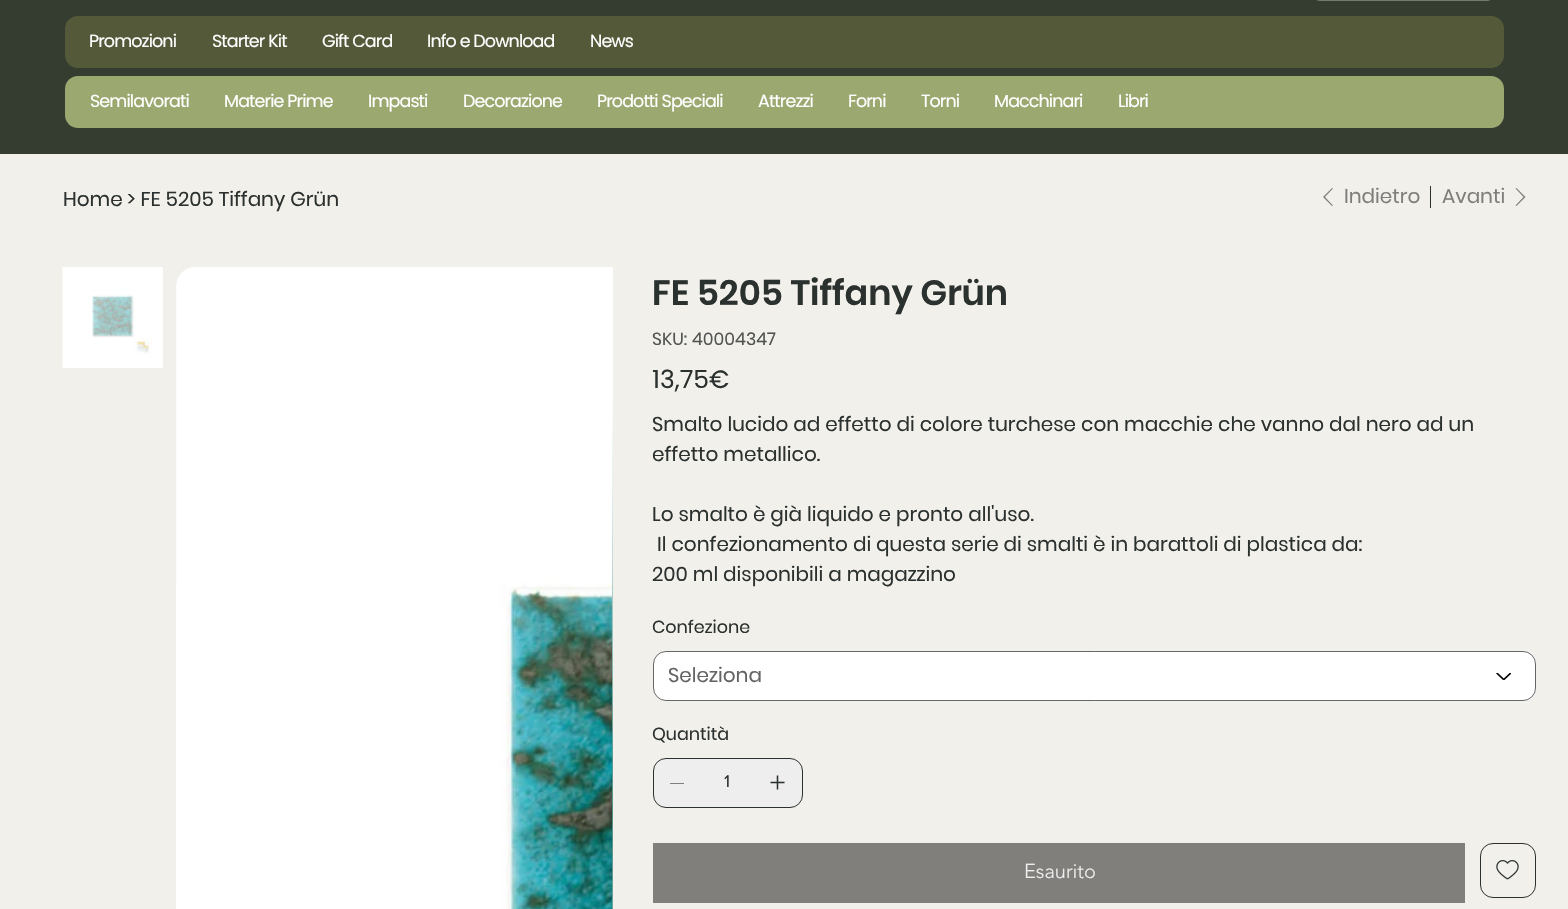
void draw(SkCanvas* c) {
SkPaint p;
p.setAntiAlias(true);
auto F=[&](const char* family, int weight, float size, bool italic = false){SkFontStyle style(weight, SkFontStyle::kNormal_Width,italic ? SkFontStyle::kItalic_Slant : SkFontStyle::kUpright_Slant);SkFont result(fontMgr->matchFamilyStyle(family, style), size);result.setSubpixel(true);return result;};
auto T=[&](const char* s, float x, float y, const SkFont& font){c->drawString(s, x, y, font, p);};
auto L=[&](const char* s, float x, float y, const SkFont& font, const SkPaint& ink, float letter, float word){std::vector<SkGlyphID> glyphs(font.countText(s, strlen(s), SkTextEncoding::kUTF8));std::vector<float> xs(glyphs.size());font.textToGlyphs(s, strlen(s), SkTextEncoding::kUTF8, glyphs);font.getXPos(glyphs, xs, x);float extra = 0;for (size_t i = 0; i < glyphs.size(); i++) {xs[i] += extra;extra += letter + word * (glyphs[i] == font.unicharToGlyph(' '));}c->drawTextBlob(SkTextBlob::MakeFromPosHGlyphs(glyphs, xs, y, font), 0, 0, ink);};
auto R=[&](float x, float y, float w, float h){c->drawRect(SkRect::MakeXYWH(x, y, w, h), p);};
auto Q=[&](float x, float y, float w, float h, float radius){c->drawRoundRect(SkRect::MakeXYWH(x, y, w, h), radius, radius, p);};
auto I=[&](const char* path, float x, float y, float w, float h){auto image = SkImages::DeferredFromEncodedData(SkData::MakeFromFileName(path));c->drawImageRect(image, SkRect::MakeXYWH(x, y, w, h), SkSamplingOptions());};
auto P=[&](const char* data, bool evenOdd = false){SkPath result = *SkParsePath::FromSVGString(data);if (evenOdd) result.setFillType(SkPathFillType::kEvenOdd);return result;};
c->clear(0xff353c30);
p.setColor(0xff747971);
Q(1313,-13,181,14,13);
p.setColor(0xff545a39);
Q(65,16,1439,52,13);
auto f1 = F("Poppins",400,17.5);
p.setColor(0xffffffff);
L("Promozioni",89,47,f1,p,-.9,0);
L("Starter Kit",212,47,f1,p,-.9,0);
L("Gift Card",322,47,f1,p,-.9,0);
L("Info e Download",427,47,f1,p,-.9,0);
L("News",590,47,f1,p,-.9,0);
p.setColor(0xff9ba86f);
Q(65,76,1439,52,13);
p.setColor(0xffffffff);
L("Semilavorati",90,107,f1,p,-.9,0);
L("Materie Prime",224,107,f1,p,-.9,0);
L("Impasti",368,107,f1,p,-.9,0);
L("Decorazione",463,107,f1,p,-.9,0);
L("Prodotti Speciali",597,107,f1,p,-.9,0);
L("Attrezzi",758,107,f1,p,-.9,0);
L("Forni",848,107,f1,p,-.9,0);
L("Torni",921,107,f1,p,-.9,0);
L("Macchinari",994,107,f1,p,-.9,0);
L("Libri",1118,107,f1,p,-.9,0);
p.setColor(0xfff2f0eb);
R(0,154,1568,755);
auto f2 = F("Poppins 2",400,20);
p.setColor(0xff2b312f);
T("Home",63,206,f2);
T("> FE 5205 Tiffany Grün",127,206,f2);
p.setColor(0xff807f7c);
c->drawPath(P("M1332 188l1 .5l-8 8.5l8 8.5l-1 .5l-9-9z",true),p);
T("Indietro",1344,203,f2);
p.setColor(0xff2b312f);
R(1430,186,1,22);
p.setColor(0xff807f7c);
T("Avanti",1442,203,f2);
c->drawPath(P("M1516.5 206l-1-.5l8-8.5l-8-8.5l1-.5l9 9z",true),p);
p.setColor(0xffffffff);
R(63,268,100,100);
I("1.png",62,267,101,100);
I("2.png",176,267,437,642);
I("3.png",176,267,436,642);
auto f3 = F("Poppins",600,35);
p.setColor(0xff2b312f);
T("FE 5205 Tiffany Grün",652,305,f3);
auto f4 = F("Poppins 2",400,17.5);
p.setColor(0xff525452);
T("SKU:",652,345,f4);
T("40004347",692,345,f4);
auto f5 = F("Poppins",400,25);
p.setColor(0xff2b312f);
T("13,75€",652,388,f5);
T("Smalto lucido ad effetto di colore turchese con macchie che vanno dal nero ad un",652,431,f2);
T("effetto metallico.",652,461,f2);
T("Lo smalto è già liquido e pronto all'uso.",652,521,f2);
T("Il confezionamento di questa serie di smalti è in barattoli di plastica da:",657,551,f2);
T("200 ml disponibili a magazzino",652,581,f2);
T("Confezione",652,633,f4);
p.setColor(0xffffffff);
Q(653,651,883,50,13);
p.setStroke(true);
p.setStrokeWidth(1);
p.setColor(0x99000000);
c->drawRoundRect(SkRect::MakeXYWH(653.5,651.5,882,49),12.5,12.5,p);
p.setStroke(false);
p.setColor(0xff646464);
T("Seleziona",668,682,f2);
I("4.png",1496,673,15,7);
p.setColor(0xff2b312f);
T("Quantità",652,740,f4);
p.setColor(0xffeeeeee);
c->drawRoundRect(SkRect::MakeXYWH(653.5,758.5,149,49),12.5,12.5,p);
p.setStroke(true);
p.setColor(0xff2b312f);
c->drawRoundRect(SkRect::MakeXYWH(653.5,758.5,149,49),12.5,12.5,p);
p.setStroke(false);
p.setColor(0xff807f7c);
R(670,783,14,1);
auto f6 = F("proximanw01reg",400,17.5);
p.setColor(0xff2b312f);
T("1",724,787,f6);
I("5.png",770,775,15,15);
p.setColor(0xff807f7c);
R(653,843,812,60);
auto f7 = F("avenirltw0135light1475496",300,20);
p.setColor(0xffeeeeee);
T("Esaurito",1024,878,f7);
p.setStroke(true);
p.setColor(0xff2b312f);
c->drawRoundRect(SkRect::MakeXYWH(1480.5,843.5,55,54),12.5,12.5,p);
I("6.png",1496,860,23,20);
}
